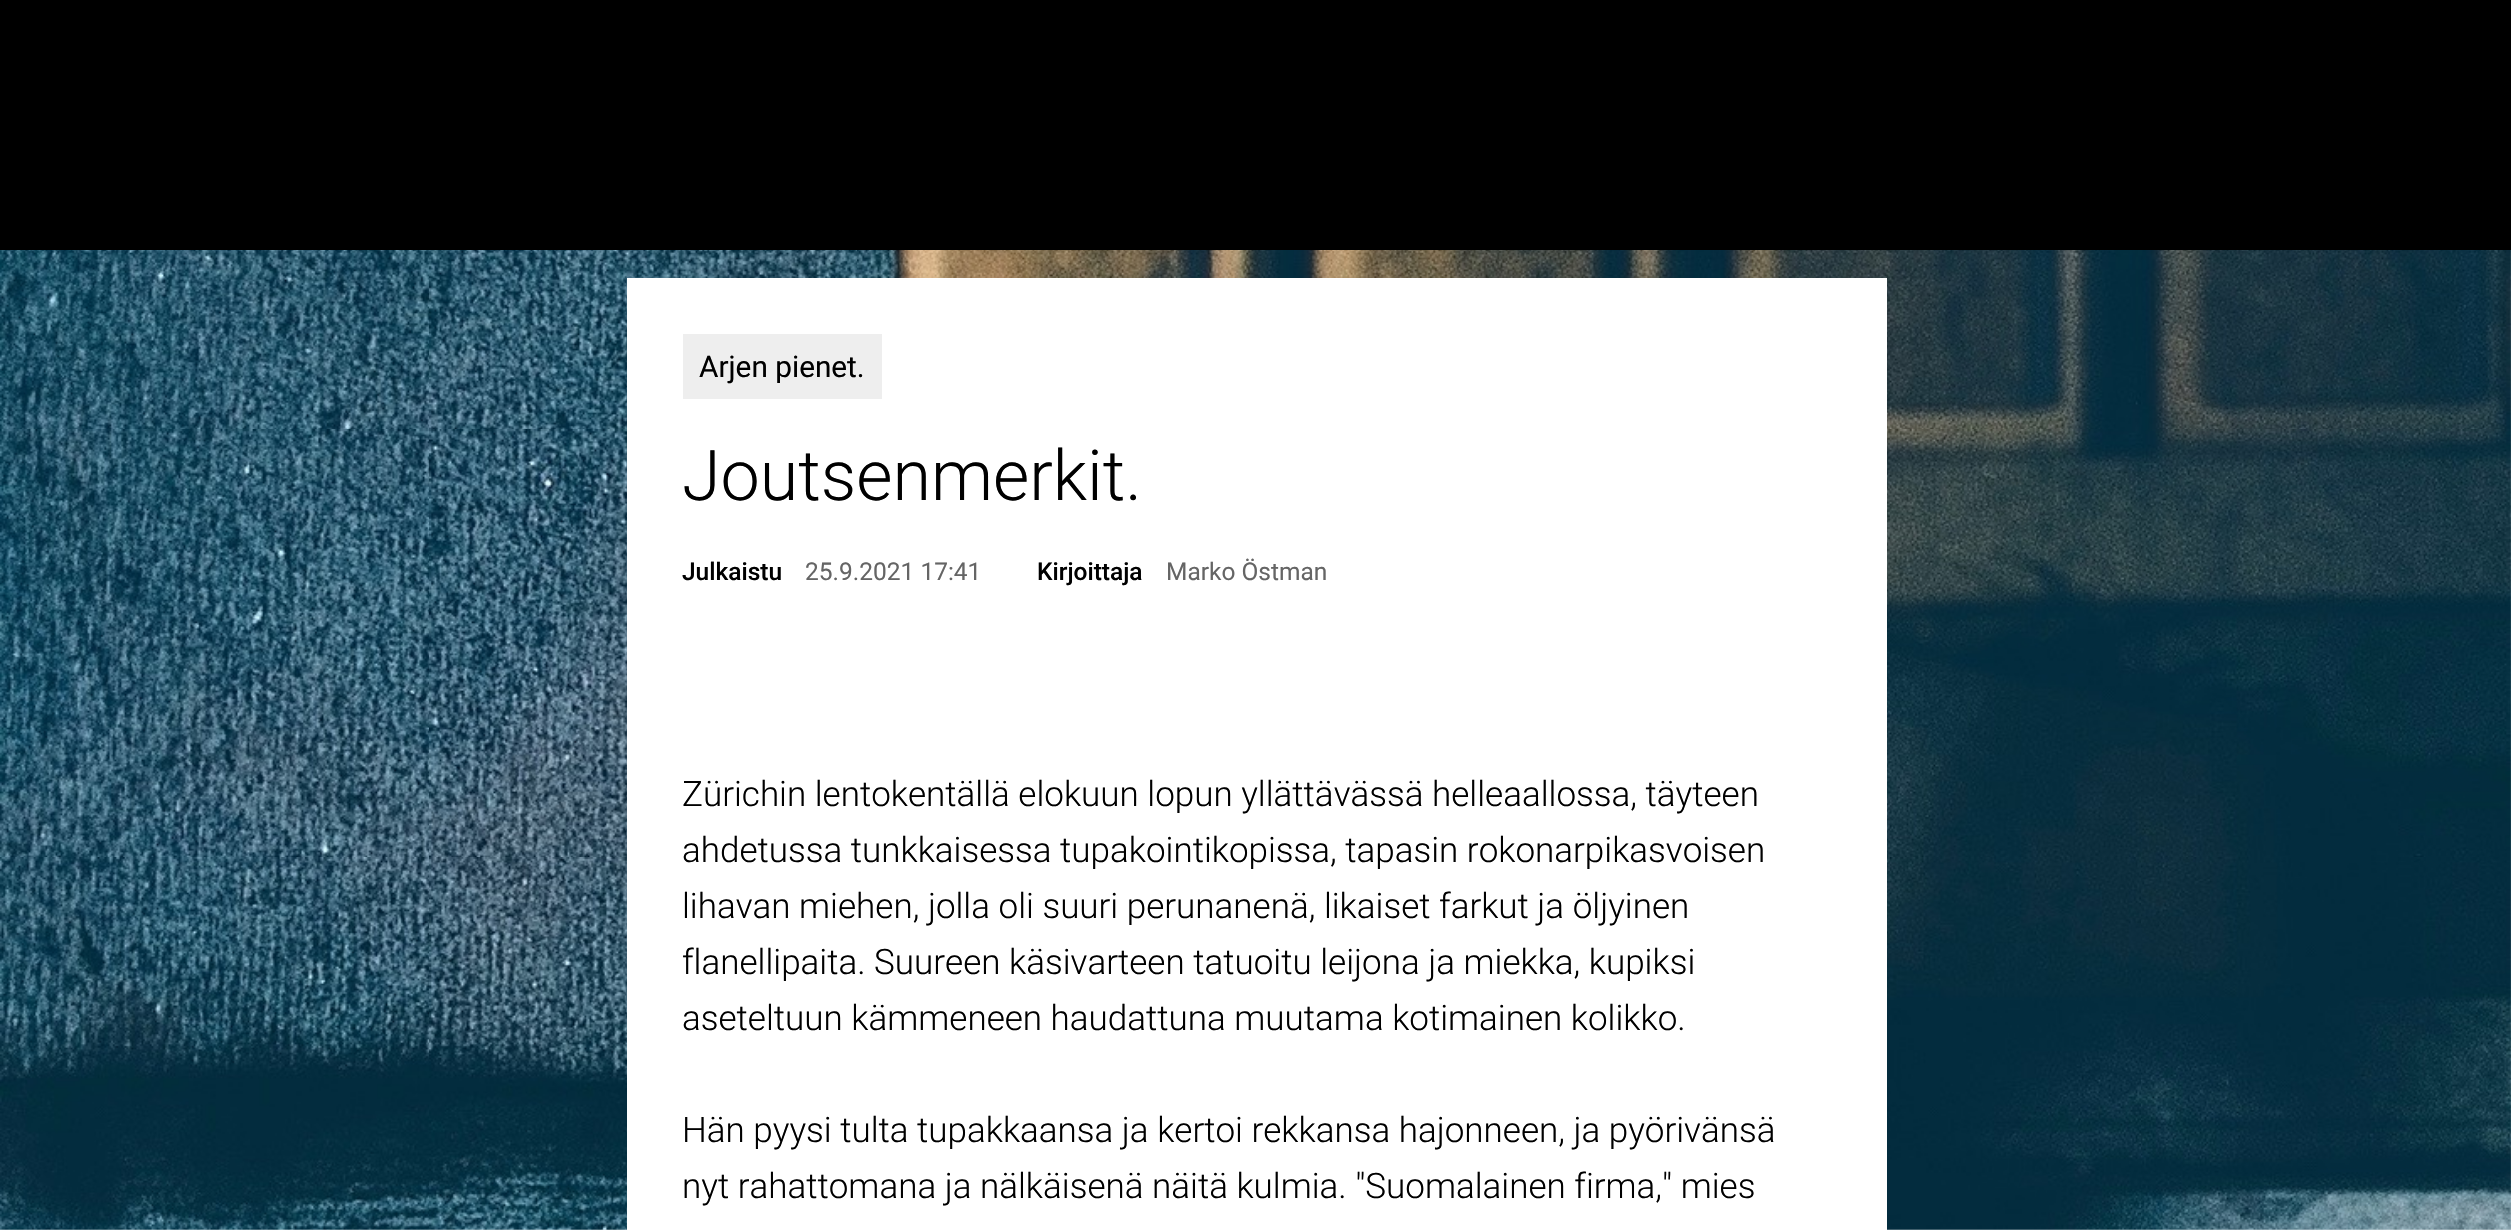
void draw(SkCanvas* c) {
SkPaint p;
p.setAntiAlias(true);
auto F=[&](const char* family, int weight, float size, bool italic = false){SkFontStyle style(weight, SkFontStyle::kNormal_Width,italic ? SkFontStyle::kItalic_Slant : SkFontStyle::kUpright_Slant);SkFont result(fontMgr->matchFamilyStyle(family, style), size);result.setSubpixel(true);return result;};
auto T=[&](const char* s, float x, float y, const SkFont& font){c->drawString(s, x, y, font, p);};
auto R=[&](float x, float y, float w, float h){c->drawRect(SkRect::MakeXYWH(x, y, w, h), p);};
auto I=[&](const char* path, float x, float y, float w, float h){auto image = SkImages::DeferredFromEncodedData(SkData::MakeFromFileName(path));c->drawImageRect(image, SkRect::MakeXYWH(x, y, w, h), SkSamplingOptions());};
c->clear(0xffffffff);
I("1.png",0,250,2511,980);
p.setColor(0xff000000);
R(0,0,2511,250);
p.setColor(0xffffffff);
R(627,278,1260,952);
p.setColor(0xffeeeeee);
R(683,334,199,65);
auto f1 = F("Roboto",400,29.75);
p.setColor(0xff000000);
T("Arjen pienet.",699,377,f1);
auto f2 = F("Roboto",300,70);
T("Joutsenmerkit.",682,500,f2);
auto f3 = F("Roboto",500,24.5);
T("Julkaistu",682,580,f3);
auto f4 = F("Roboto",400,24.5);
p.setColor(0xff656565);
T("25.9.2021 17:41",805,580,f4);
p.setColor(0xff000000);
T("Kirjoittaja",1037,580,f3);
p.setColor(0xff656565);
T("Marko Östman",1166,580,f4);
auto f5 = F("Roboto",300,35);
p.setColor(0xff000000);
T("Zürichin lentokentällä elokuun lopun yllättävässä helleaallossa, täyteen",682,806,f5);
T("ahdetussa tunkkaisessa tupakointikopissa, tapasin rokonarpikasvoisen",682,862,f5);
T("lihavan miehen, jolla oli suuri perunanenä, likaiset farkut ja öljyinen",682,918,f5);
T("flanellipaita. Suureen käsivarteen tatuoitu leijona ja miekka, kupiksi",682,974,f5);
T("aseteltuun kämmeneen haudattuna muutama kotimainen kolikko.",682,1030,f5);
T("Hän pyysi tulta tupakkaansa ja kertoi rekkansa hajonneen, ja pyörivänsä",682,1142,f5);
T("nyt rahattomana ja nälkäisenä näitä kulmia. \"Suomalainen firma,\" mies",682,1198,f5);
}
